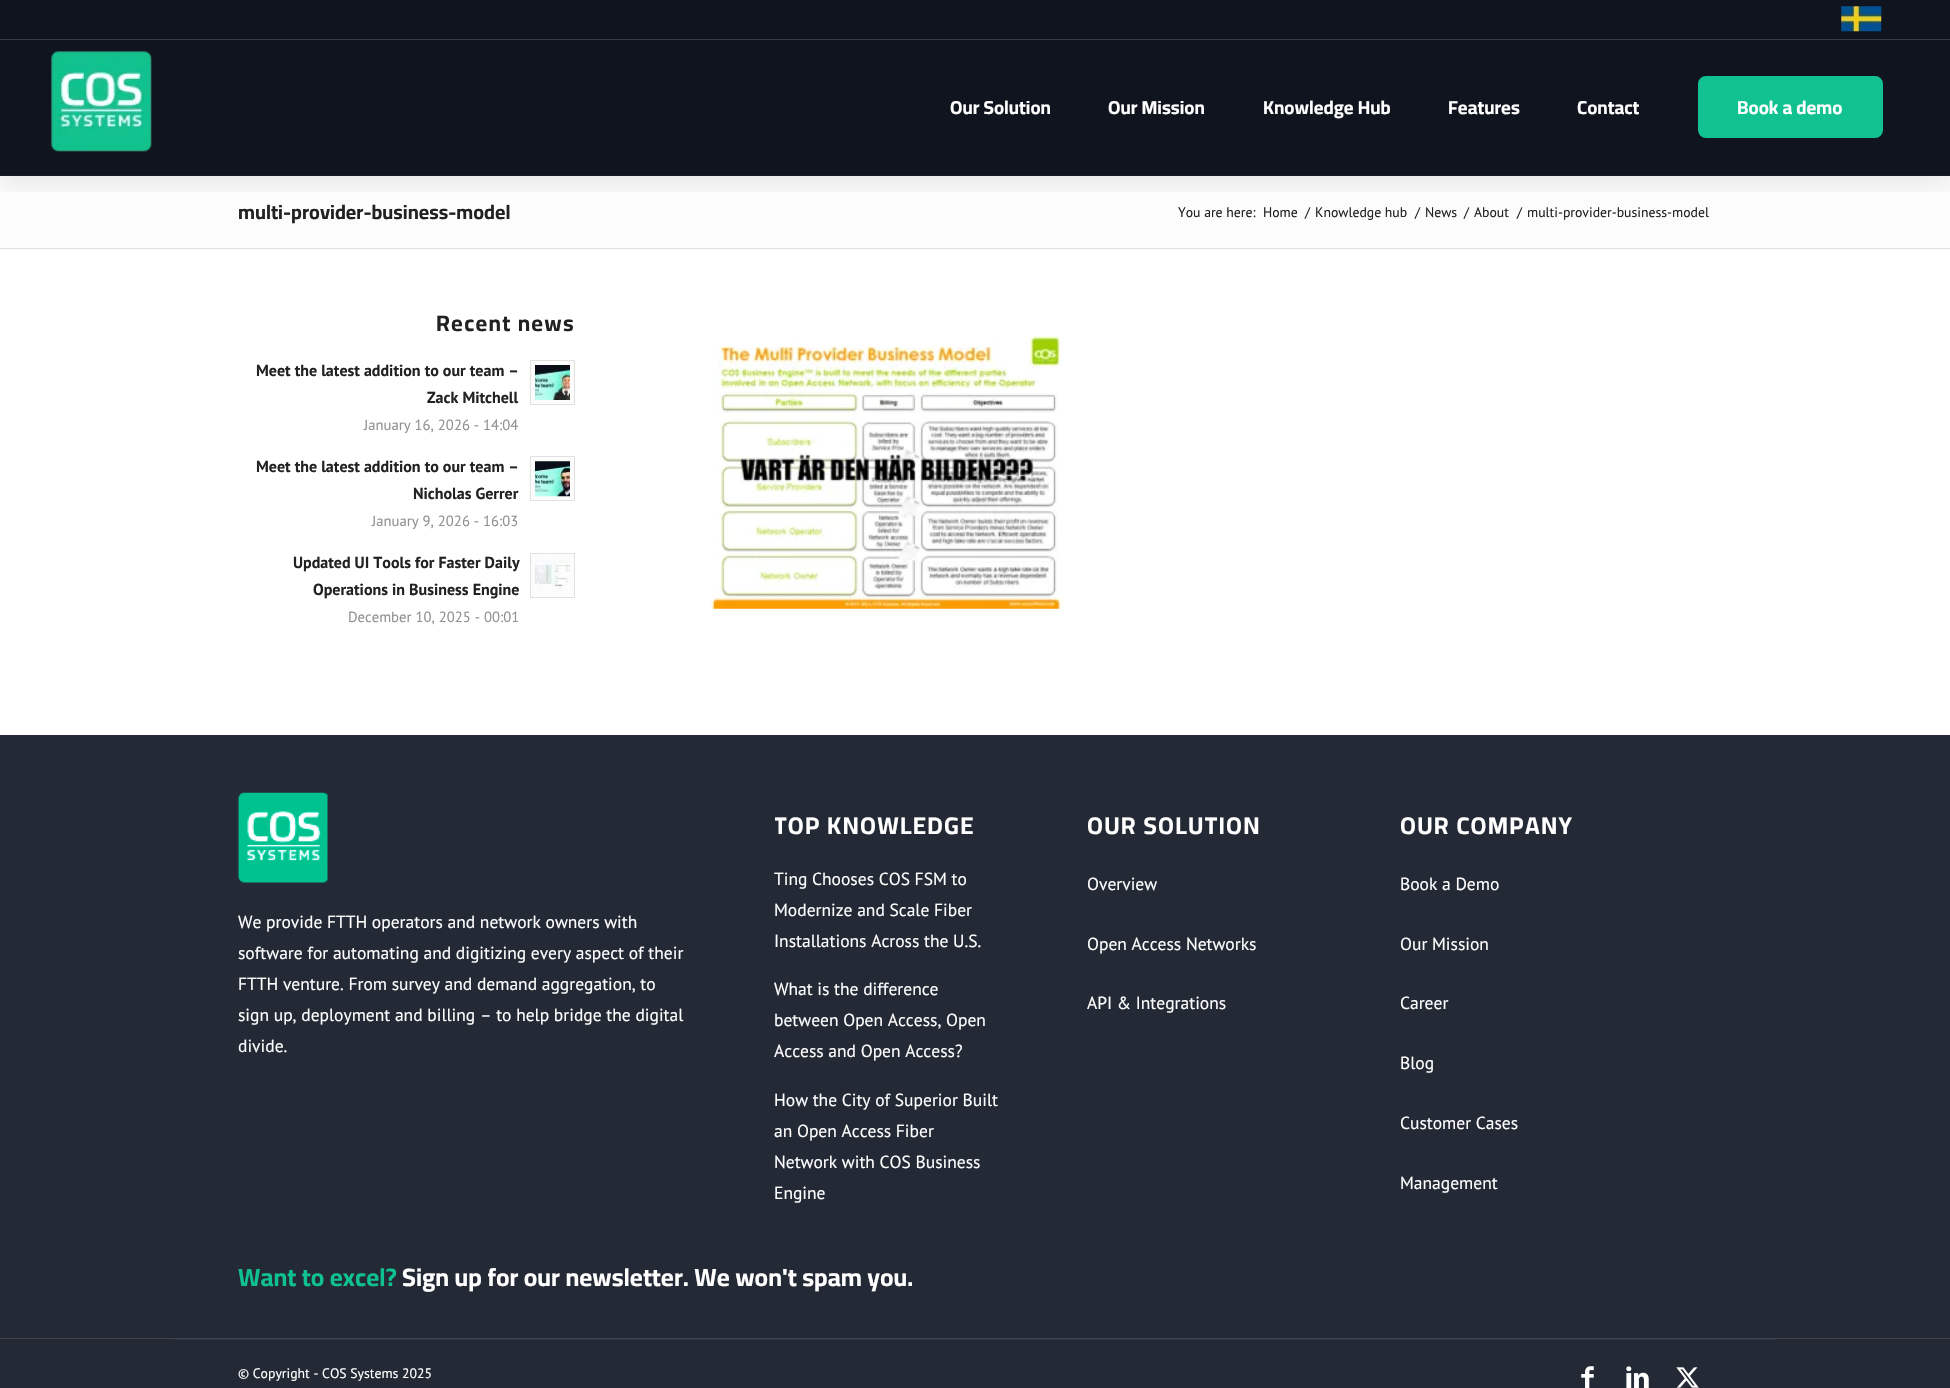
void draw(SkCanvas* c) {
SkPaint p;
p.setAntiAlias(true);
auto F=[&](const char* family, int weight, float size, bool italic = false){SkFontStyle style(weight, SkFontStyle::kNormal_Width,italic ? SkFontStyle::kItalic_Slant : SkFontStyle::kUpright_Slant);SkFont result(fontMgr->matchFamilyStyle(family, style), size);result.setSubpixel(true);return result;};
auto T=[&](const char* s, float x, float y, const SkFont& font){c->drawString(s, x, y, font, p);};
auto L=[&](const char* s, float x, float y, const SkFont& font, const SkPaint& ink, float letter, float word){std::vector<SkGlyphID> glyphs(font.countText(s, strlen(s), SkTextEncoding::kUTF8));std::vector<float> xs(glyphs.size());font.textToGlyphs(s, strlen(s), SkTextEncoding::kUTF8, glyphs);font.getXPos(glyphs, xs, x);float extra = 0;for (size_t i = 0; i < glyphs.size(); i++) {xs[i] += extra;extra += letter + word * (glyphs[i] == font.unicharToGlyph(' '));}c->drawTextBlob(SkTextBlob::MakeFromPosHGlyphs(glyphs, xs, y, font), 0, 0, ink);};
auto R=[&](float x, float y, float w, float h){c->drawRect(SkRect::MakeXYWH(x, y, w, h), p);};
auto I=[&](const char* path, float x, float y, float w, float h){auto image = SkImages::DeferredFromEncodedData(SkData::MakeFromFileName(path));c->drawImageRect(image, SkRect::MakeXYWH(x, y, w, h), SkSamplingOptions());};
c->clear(0xff10141f);
p.setColor(0xfffcfcfc);
R(0,176,1950,72);
p.setColor(0xff101d25);
R(0,175,1950,1);
c->save();
c->clipRect(SkRect::MakeXYWH(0,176,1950,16));
p.setColor(0x14000000);
p.setMaskFilter(SkMaskFilter::MakeBlur(kNormal_SkBlurStyle, 12));
c->drawRect(SkRect::MakeXYWH(0,46,1950,138),p);
p.setMaskFilter(nullptr);
c->restore();
p.setColor(0xff393c45);
R(0,39,1950,1);
I("1.png",1841,6,41,26);
I("2.png",51,51,101,101);
auto f1 = F("Cairo",700,18.75);
p.setColor(0xffffffff);
T("Our Solution",950,114,f1);
T("Our Mission",1108,114,f1);
T("Knowledge Hub",1263,114,f1);
T("Features",1448,114,f1);
T("Contact",1577,114,f1);
p.setColor(0xff11c190);
c->drawRoundRect(SkRect::MakeXYWH(1699.5,77.5,182,59),6.5,6.5,p);
p.setStroke(true);
p.setStrokeWidth(3);
c->drawRoundRect(SkRect::MakeXYWH(1699.5,77.5,182,59),6.5,6.5,p);
p.setStroke(false);
p.setColor(0xffffffff);
T("Book a demo",1737,114,f1);
auto f2 = F("Cairo",700,20);
p.setColor(0xff222222);
T("multi-provider-business-model",238,219,f2);
auto f3 = F("PT Sans",400,13.75);
T("You are here:",1178,217,f3);
T("Home",1263,217,f3);
T("/",1305,217,f3);
T("Knowledge hub",1315,217,f3);
T("/",1415,217,f3);
T("News",1425,217,f3);
T("/",1464,217,f3);
T("About",1474,217,f3);
T("/",1517,217,f3);
T("multi-provider-business-model",1527,217,f3);
p.setColor(0xffffffff);
R(0,249,1950,486);
p.setColor(0xffe1e1e1);
R(0,248,1950,1);
auto f4 = F("Cairo",700,22.5);
p.setColor(0xff222222);
L("Recent news",436,331,f4,p,1.25,0);
auto f5 = F("PT Sans",700,16);
T("Meet the latest addition to our team –",256,376,f5);
T("Zack Mitchell",427,403,f5);
auto f6 = F("PT Sans",400,14.7);
p.setColor(0xff919191);
T("January 16, 2026 - 14:04",364,430,f6);
p.setColor(0xfffcfcfc);
c->drawRect(SkRect::MakeXYWH(530.5,360.5,44,44),p);
p.setStroke(true);
p.setStrokeWidth(1);
p.setColor(0xffe1e1e1);
c->drawRect(SkRect::MakeXYWH(530.5,360.5,44,44),p);
I("3.png",535,365,35,35);
p.setStroke(false);
p.setColor(0xff222222);
T("Meet the latest addition to our team –",256,472,f5);
T("Nicholas Gerrer",413,499,f5);
p.setColor(0xff919191);
T("January 9, 2026 - 16:03",372,526,f6);
p.setColor(0xfffcfcfc);
c->drawRect(SkRect::MakeXYWH(530.5,456.5,44,44),p);
p.setStroke(true);
p.setColor(0xffe1e1e1);
c->drawRect(SkRect::MakeXYWH(530.5,456.5,44,44),p);
I("4.png",535,461,35,36);
p.setStroke(false);
p.setColor(0xff222222);
T("Updated UI Tools for Faster Daily",293,568,f5);
T("Operations in Business Engine",313,595,f5);
p.setColor(0xff919191);
T("December 10, 2025 - 00:01",348,622,f6);
p.setColor(0xfffcfcfc);
c->drawRect(SkRect::MakeXYWH(530.5,553.5,44,44),p);
p.setStroke(true);
p.setColor(0xffe1e1e1);
c->drawRect(SkRect::MakeXYWH(530.5,553.5,44,44),p);
I("5.png",535,558,35,30);
I("6.png",710,336,354,273);
p.setStroke(false);
p.setColor(0xff232935);
R(0,735,1950,603);
I("7.png",237,792,91,91);
auto f7 = F("PT Sans",400,17.5);
p.setColor(0xffffffff);
T("We provide FTTH operators and network owners with",238,928,f7);
T("software for automating and digitizing every aspect of their",238,959,f7);
T("FTTH venture. From survey and demand aggregation, to",238,990,f7);
T("sign up, deployment and billing – to help bridge the digital",238,1021,f7);
T("divide.",238,1052,f7);
c->save();
c->clipRect(SkRect::MakeXYWH(775,793,224,433));
auto f8 = F("Cairo",700,24);
L("TOP KNOWLEDGE",774,834,f8,p,1.25,0);
c->restore();
T("Ting Chooses COS FSM to",774,885,f7);
T("Modernize and Scale Fiber",774,916,f7);
T("Installations Across the U.S.",774,947,f7);
T("What is the difference",774,995,f7);
T("between Open Access, Open",774,1026,f7);
T("Access and Open Access?",774,1057,f7);
T("How the City of Superior Built",774,1106,f7);
T("an Open Access Fiber",774,1137,f7);
T("Network with COS Business",774,1168,f7);
T("Engine",774,1199,f7);
L("OUR SOLUTION",1087,834,f8,p,1.25,0);
T("Overview",1087,890,f7);
T("Open Access Networks",1087,950,f7);
T("API & Integrations",1087,1009,f7);
L("OUR COMPANY",1400,834,f8,p,1.25,0);
T("Book a Demo",1400,890,f7);
T("Our Mission",1400,950,f7);
T("Career",1400,1009,f7);
T("Blog",1400,1069,f7);
T("Customer Cases",1400,1129,f7);
T("Management",1400,1189,f7);
auto f9 = F("Cairo",700,25);
p.setColor(0xff10c190);
T("Want to excel?",238,1286,f9);
p.setColor(0xffffffff);
T("Sign up for our newsletter. We won't spam you.",402,1286,f9);
p.setColor(0xff232935);
R(0,1339,1950,49);
p.setColor(0xff444444);
R(0,1338,1950,1);
p.setColor(0xff2b3852);
R(175,1339,1600,1);
p.setColor(0xffffffff);
T("© Copyright - COS Systems 2025",238,1378,f3);
I("8.png",1581,1366,13,22);
I("9.png",1626,1366,23,22);
I("10.png",1676,1367,23,21);
}
